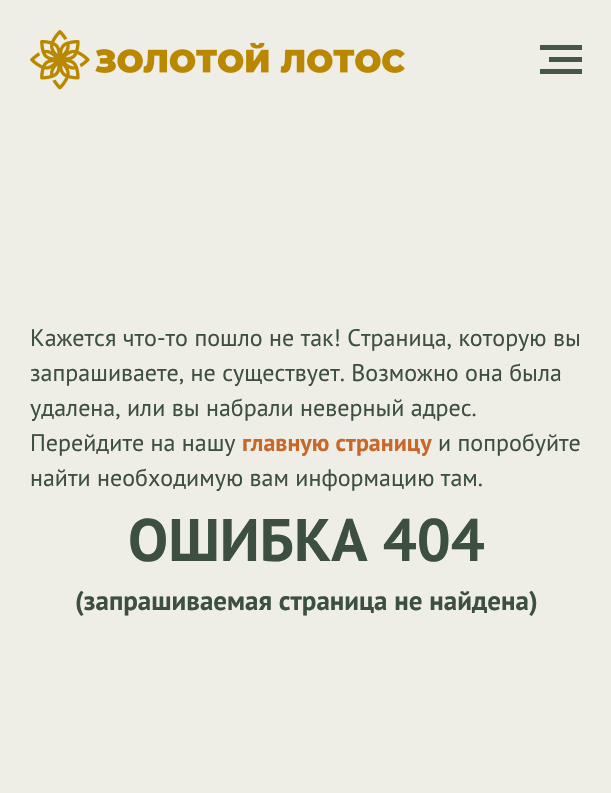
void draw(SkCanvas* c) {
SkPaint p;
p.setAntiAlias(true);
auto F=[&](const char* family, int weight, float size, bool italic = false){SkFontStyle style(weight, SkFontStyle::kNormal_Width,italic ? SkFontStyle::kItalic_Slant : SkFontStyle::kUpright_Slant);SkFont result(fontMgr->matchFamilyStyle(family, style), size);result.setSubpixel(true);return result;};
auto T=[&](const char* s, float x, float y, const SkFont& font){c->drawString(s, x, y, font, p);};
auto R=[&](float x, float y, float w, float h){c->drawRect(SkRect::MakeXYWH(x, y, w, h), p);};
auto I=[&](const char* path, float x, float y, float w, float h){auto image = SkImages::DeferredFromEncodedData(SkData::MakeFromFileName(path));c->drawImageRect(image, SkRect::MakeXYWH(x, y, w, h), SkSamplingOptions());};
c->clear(0xffefeee6);
I("1.png",30,30,375,60);
p.setColor(0xff435847);
R(540,45,42,5);
R(549,57,33,5);
R(540,69,42,5);
auto f1 = F("PT Sans",400,24);
p.setColor(0xff3c4f40);
T("Кажется что-то пошло не так! Страница, которую вы",30,346,f1);
T("запрашиваете, не существует. Возможно она была",30,381,f1);
T("удалена, или вы набрали неверный адрес.",30,416,f1);
T("Перейдите на нашу",30,451,f1);
auto f2 = F("PT Sans",700,24);
p.setColor(0xffc7672a);
T("главную страницу",242,451,f2);
p.setColor(0xff3c4f40);
T("и попробуйте",438,451,f1);
T("найти необходимую вам информацию там.",30,486,f1);
auto f3 = F("PT Sans",700,60);
T("ОШИБКА 404",128,561,f3);
auto f4 = F("PT Sans",700,27);
T("(запрашиваемая страница не найдена)",75,610,f4);
}
